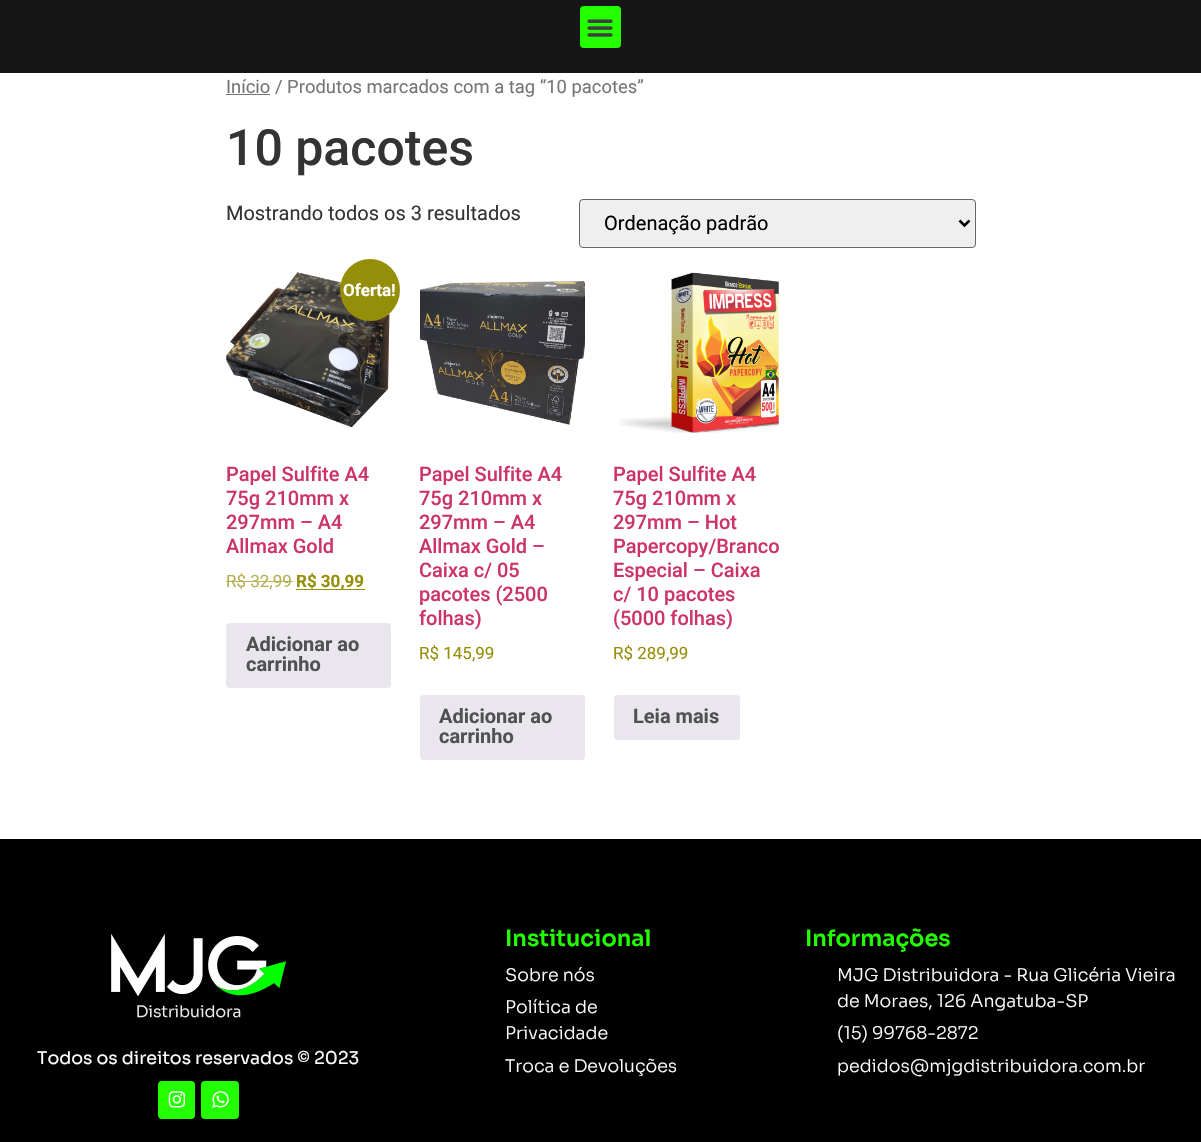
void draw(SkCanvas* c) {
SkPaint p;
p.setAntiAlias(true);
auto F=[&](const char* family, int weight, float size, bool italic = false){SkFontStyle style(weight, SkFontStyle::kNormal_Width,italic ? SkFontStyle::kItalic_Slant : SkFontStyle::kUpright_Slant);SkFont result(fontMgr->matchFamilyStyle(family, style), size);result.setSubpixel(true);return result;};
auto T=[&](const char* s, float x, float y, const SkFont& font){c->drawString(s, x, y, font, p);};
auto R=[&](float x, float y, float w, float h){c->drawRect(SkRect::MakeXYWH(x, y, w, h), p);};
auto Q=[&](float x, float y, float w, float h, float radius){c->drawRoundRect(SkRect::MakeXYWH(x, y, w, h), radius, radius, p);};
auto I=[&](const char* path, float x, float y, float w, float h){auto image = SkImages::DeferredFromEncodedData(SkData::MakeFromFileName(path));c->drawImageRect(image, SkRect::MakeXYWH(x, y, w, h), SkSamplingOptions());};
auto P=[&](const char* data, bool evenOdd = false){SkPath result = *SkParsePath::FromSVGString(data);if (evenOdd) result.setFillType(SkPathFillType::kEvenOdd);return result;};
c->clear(0xffffffff);
p.setColor(0xff161616);
R(0,0,1201,73);
p.setColor(0xff24ff00);
Q(580,6,41,42,4);
I("1.png",587,19,26,18);
p.setColor(0xff767676);
R(226,94,44,1);
auto f1 = F("Roboto",400,18.4);
T("Início / Produtos marcados com a tag “10 pacotes”",226,93,f1);
auto f2 = F("Roboto",500,50);
p.setColor(0xff333333);
T("10 pacotes",226,165,f2);
auto f3 = F("Roboto",400,20);
T("Mostrando todos os 3 resultados",226,220,f3);
p.setColor(0xffefefef);
c->drawRoundRect(SkRect::MakeXYWH(579.5,199.5,396,48),3.5,3.5,p);
p.setStroke(true);
p.setStrokeWidth(1);
p.setColor(0xff666666);
c->drawRoundRect(SkRect::MakeXYWH(579.5,199.5,396,48),3.5,3.5,p);
p.setStrokeWidth(2.5);
p.setColor(0xff000000);
c->drawPath(P("M959.5 220.5l5 5l5-5"),p);
p.setStroke(false);
T("Ordenação padrão",604,230,f3);
I("2.png",226,272,164,156);
p.setColor(0xff958e09);
c->drawOval(SkRect::MakeXYWH(340,259,60,62),p);
auto f4 = F("Roboto",700,17);
p.setColor(0xffffffff);
T("Oferta!",343,296,f4);
auto f5 = F("Roboto",500,20);
p.setColor(0xffcc3366);
T("Papel Sulfite A4",226,481,f5);
T("75g 210mm x",226,505,f5);
T("297mm – A4",226,529,f5);
T("Allmax Gold",226,553,f5);
auto f6 = F("Roboto",400,17);
p.setColor(0xffb5b053);
T("R$ 32,99",226,587,f6);
R(226,581,67,1);
p.setColor(0xff958e09);
R(296,589,69,1);
T("R$ 30,99",296,587,f4);
p.setColor(0xffe9e6ed);
Q(226,623,165,65,4);
auto f7 = F("Roboto",700,20);
p.setColor(0xff515151);
T("Adicionar ao",246,651,f7);
T("carrinho",246,671,f7);
I("3.png",420,281,165,144);
p.setColor(0xffcc3366);
T("Papel Sulfite A4",419,481,f5);
T("75g 210mm x",419,505,f5);
T("297mm – A4",419,529,f5);
T("Allmax Gold –",419,553,f5);
T("Caixa c/ 05",419,577,f5);
T("pacotes (2500",419,601,f5);
T("folhas)",419,625,f5);
p.setColor(0xff958e09);
T("R$ 145,99",419,659,f6);
p.setColor(0xffe9e6ed);
Q(420,695,165,65,4);
p.setColor(0xff515151);
T("Adicionar ao",439,723,f7);
T("carrinho",439,743,f7);
I("4.png",619,272,160,161);
p.setColor(0xffcc3366);
T("Papel Sulfite A4",613,481,f5);
T("75g 210mm x",613,505,f5);
T("297mm – Hot",613,529,f5);
T("Papercopy/Branco",613,553,f5);
T("Especial – Caixa",613,577,f5);
T("c/ 10 pacotes",613,601,f5);
T("(5000 folhas)",613,625,f5);
p.setColor(0xff958e09);
T("R$ 289,99",613,659,f6);
p.setColor(0xffe9e6ed);
Q(614,695,126,45,4);
p.setColor(0xff515151);
T("Leia mais",633,723,f7);
p.setColor(0xff000000);
R(0,839,1201,303);
I("5.png",111,934,175,84);
auto f8 = F("Sora",400,17.5);
p.setColor(0xffffffff);
T("Todos os direitos reservados © 2023",37,1064,f8);
p.setColor(0xff24ff00);
Q(158,1081,37,38,4);
I("6.png",168,1091,18,17);
Q(201,1081,38,38,4);
I("7.png",212,1091,17,17);
auto f9 = F("Sora",600,22.5);
T("Institucional",505,946,f9);
auto f10 = F("Sora",300,17.5);
p.setColor(0xffffffff);
T("Sobre nós",505,981,f10);
T("Política de",505,1013,f10);
T("Privacidade",505,1039,f10);
T("Troca e Devoluções",505,1072,f10);
p.setColor(0xff24ff00);
T("Informações",805,946,f9);
p.setColor(0xffffffff);
T("MJG Distribuidora - Rua Glicéria Vieira",837,981,f10);
T("de Moraes, 126 Angatuba-SP",837,1007,f10);
T("(15) 99768-2872",837,1039,f10);
T("pedidos@mjgdistribuidora.com.br",837,1072,f10);
}
